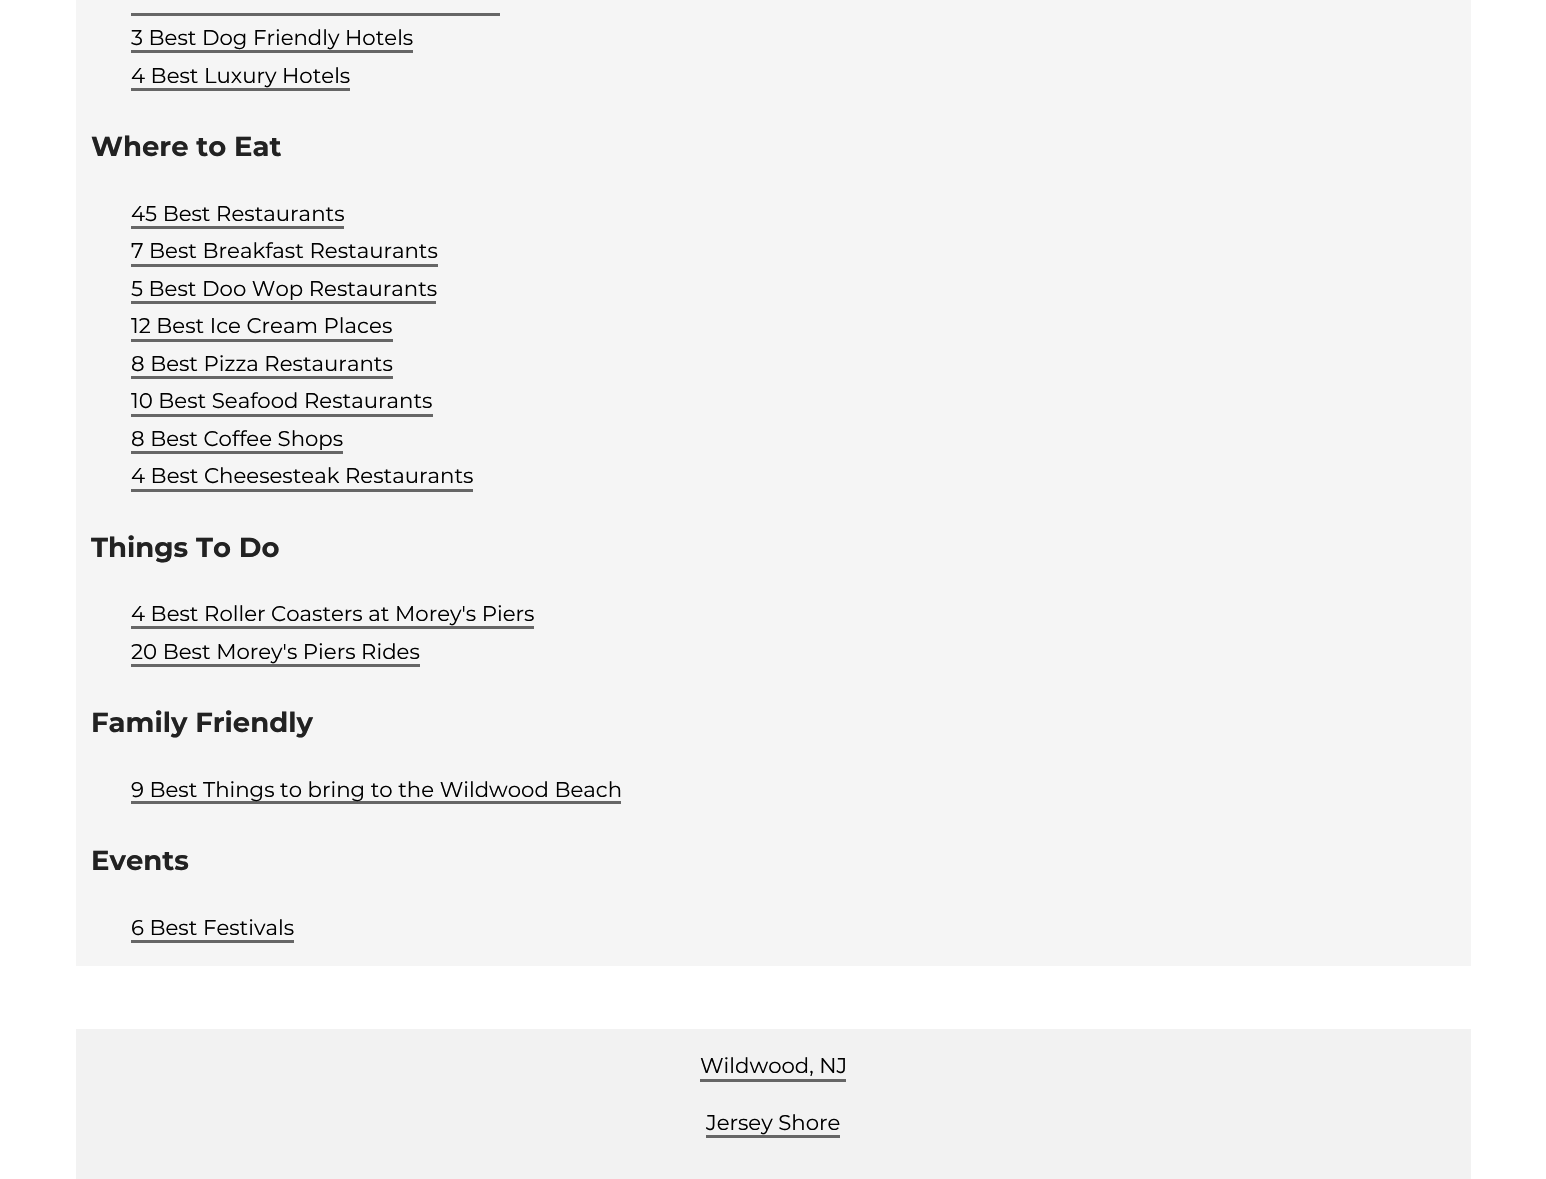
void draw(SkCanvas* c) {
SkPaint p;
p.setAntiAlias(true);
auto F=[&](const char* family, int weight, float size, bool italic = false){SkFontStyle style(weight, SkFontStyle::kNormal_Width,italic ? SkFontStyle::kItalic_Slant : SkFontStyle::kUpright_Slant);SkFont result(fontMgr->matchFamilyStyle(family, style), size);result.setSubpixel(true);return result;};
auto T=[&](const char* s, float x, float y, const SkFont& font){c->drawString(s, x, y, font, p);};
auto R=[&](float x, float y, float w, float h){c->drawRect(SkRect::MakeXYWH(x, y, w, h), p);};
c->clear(0xffffffff);
p.setColor(0xfff5f5f5);
R(76,0,1395,966);
p.setColor(0xff666666);
R(131,13,369,3);
auto f1 = F("Montserrat",400,21.25);
p.setColor(0xff000000);
T("3 Best Dog Friendly Hotels",131,45,f1);
p.setColor(0xff666666);
R(131,50,282,3);
p.setColor(0xff000000);
T("4 Best Luxury Hotels",131,83,f1);
p.setColor(0xff666666);
R(131,88,219,3);
auto f2 = F("Montserrat",700,27.5);
p.setColor(0xff222222);
T("Where to Eat",91,156,f2);
p.setColor(0xff000000);
T("45 Best Restaurants",131,221,f1);
p.setColor(0xff666666);
R(131,226,213,3);
p.setColor(0xff000000);
T("7 Best Breakfast Restaurants",131,258,f1);
p.setColor(0xff666666);
R(131,264,307,3);
p.setColor(0xff000000);
T("5 Best Doo Wop Restaurants",131,296,f1);
p.setColor(0xff666666);
R(131,301,305,3);
p.setColor(0xff000000);
T("12 Best Ice Cream Places",131,333,f1);
p.setColor(0xff666666);
R(131,339,262,3);
p.setColor(0xff000000);
T("8 Best Pizza Restaurants",131,371,f1);
p.setColor(0xff666666);
R(131,376,262,3);
p.setColor(0xff000000);
T("10 Best Seafood Restaurants",131,408,f1);
p.setColor(0xff666666);
R(131,414,302,3);
p.setColor(0xff000000);
T("8 Best Coffee Shops",131,446,f1);
p.setColor(0xff666666);
R(131,451,212,3);
p.setColor(0xff000000);
T("4 Best Cheesesteak Restaurants",131,483,f1);
p.setColor(0xff666666);
R(131,489,342,3);
p.setColor(0xff222222);
T("Things To Do",91,557,f2);
p.setColor(0xff000000);
T("4 Best Roller Coasters at Morey's Piers",131,621,f1);
p.setColor(0xff666666);
R(131,626,403,3);
p.setColor(0xff000000);
T("20 Best Morey's Piers Rides",131,659,f1);
p.setColor(0xff666666);
R(131,664,289,3);
p.setColor(0xff222222);
T("Family Friendly",91,732,f2);
p.setColor(0xff666666);
R(131,801,490,3);
p.setColor(0xff000000);
T("9 Best Things to bring to the Wildwood Beach",131,797,f1);
p.setColor(0xff222222);
T("Events",91,870,f2);
p.setColor(0xff000000);
T("6 Best Festivals",131,935,f1);
p.setColor(0xff666666);
R(131,940,163,3);
p.setColor(0xfff2f2f2);
R(76,1029,1395,150);
p.setColor(0xff000000);
T("Wildwood, NJ",700,1073,f1);
p.setColor(0xff666666);
R(700,1079,146,3);
p.setColor(0xff000000);
T("Jersey Shore",706,1130,f1);
p.setColor(0xff666666);
R(706,1135,134,3);
}
